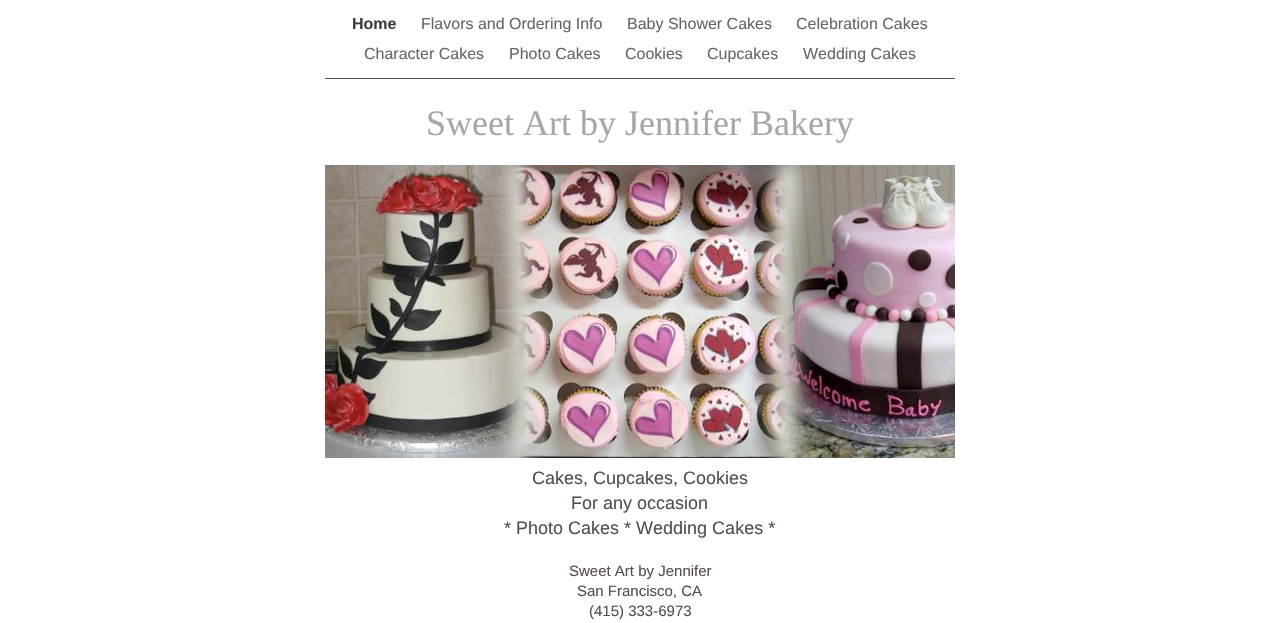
void draw(SkCanvas* c) {
SkPaint p;
p.setAntiAlias(true);
auto F=[&](const char* family, int weight, float size, bool italic = false){SkFontStyle style(weight, SkFontStyle::kNormal_Width,italic ? SkFontStyle::kItalic_Slant : SkFontStyle::kUpright_Slant);SkFont result(fontMgr->matchFamilyStyle(family, style), size);result.setSubpixel(true);return result;};
auto T=[&](const char* s, float x, float y, const SkFont& font){c->drawString(s, x, y, font, p);};
auto R=[&](float x, float y, float w, float h){c->drawRect(SkRect::MakeXYWH(x, y, w, h), p);};
auto I=[&](const char* path, float x, float y, float w, float h){auto image = SkImages::DeferredFromEncodedData(SkData::MakeFromFileName(path));c->drawImageRect(image, SkRect::MakeXYWH(x, y, w, h), SkSamplingOptions());};
c->clear(0xffffffff);
auto f1 = F("Liberation Sans",700,16);
p.setColor(0xff463c3c);
T("Home",352,29,f1);
auto f2 = F("Liberation Sans",400,16);
p.setColor(0xff666666);
T("Flavors and Ordering Info",421,29,f2);
T("Baby Shower Cakes",627,29,f2);
T("Celebration Cakes",796,29,f2);
T("Character Cakes",364,59,f2);
T("Photo Cakes",509,59,f2);
T("Cookies",625,59,f2);
T("Cupcakes",707,59,f2);
T("Wedding Cakes",803,59,f2);
p.setColor(0xff574d4c);
R(325,78,630,1);
auto f3 = F("Liberation Serif",400,36);
p.setColor(0xffa7a7a7);
T("Sweet Art by Jennifer Bakery",426,135,f3);
I("1.png",325,165,630,293);
auto f4 = F("Liberation Sans",400,18);
p.setColor(0xff584d4d);
T("Cakes, Cupcakes, Cookies",532,484,f4);
T("For any occasion",571,509,f4);
T("* Photo Cakes * Wedding Cakes *",504,534,f4);
auto f5 = F("Liberation Sans",400,15);
T("Sweet Art by Jennifer",569,576,f5);
T("San Francisco, CA",577,596,f5);
T("(415) 333-6973",589,616,f5);
}
